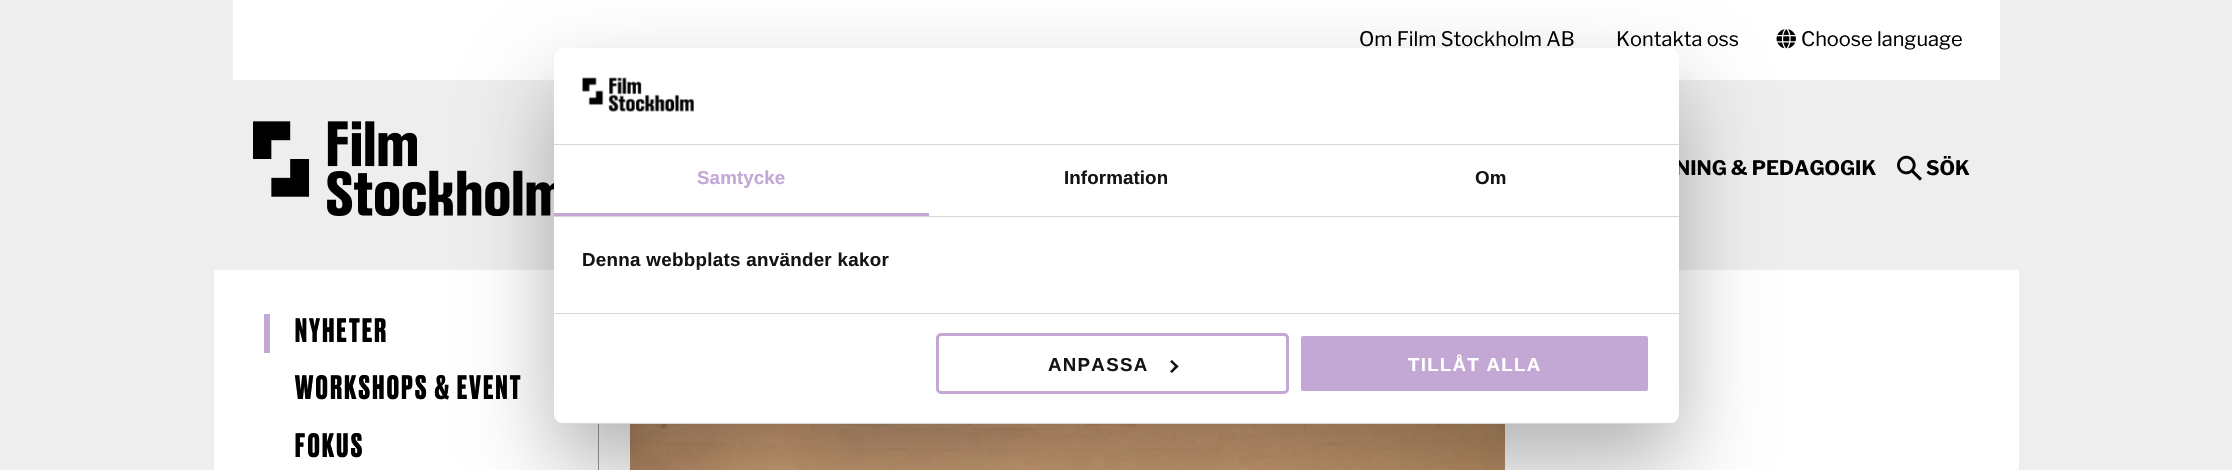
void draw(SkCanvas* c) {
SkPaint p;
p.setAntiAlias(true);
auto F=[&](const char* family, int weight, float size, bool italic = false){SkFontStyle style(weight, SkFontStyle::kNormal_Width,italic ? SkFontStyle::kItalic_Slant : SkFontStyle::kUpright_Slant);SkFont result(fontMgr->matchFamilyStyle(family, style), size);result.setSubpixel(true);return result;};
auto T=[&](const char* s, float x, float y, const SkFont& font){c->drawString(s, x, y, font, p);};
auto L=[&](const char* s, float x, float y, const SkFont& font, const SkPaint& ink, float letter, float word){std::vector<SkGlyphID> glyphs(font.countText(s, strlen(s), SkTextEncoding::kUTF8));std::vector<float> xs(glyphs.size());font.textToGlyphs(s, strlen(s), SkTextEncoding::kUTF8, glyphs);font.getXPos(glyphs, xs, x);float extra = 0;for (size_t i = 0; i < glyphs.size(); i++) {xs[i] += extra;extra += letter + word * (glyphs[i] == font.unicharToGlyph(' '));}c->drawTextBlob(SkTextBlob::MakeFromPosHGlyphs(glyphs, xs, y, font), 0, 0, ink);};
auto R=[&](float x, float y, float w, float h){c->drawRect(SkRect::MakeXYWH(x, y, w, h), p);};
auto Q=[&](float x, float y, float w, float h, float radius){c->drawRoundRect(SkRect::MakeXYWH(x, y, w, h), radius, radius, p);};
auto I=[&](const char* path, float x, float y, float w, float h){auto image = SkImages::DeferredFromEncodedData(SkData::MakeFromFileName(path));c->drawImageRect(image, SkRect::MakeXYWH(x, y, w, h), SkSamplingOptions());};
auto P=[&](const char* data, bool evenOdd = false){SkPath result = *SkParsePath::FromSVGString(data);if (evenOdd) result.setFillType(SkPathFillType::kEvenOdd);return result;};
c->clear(0xffeeeeee);
p.setColor(0xffffffff);
R(233,0,1767,80);
auto f1 = F("Libre Franklin",400,20);
p.setColor(0xff000000);
T("Om Film Stockholm AB",1359,46,f1);
T("Kontakta oss",1616,46,f1);
I("1.png",1776,29,20,20);
T("Choose language",1801,46,f1);
I("2.png",253,121,301,95);
auto f2 = F("Libre Franklin",700,20);
T("NING & PEDAGOGIK",1675,175,f2);
I("3.png",1897,155,25,26);
T("SÖK",1926,175,f2);
p.setColor(0xffffffff);
R(214,270,1805,200);
p.setColor(0xff999999);
R(598,424,1,46);
p.setColor(0xffc3a8d5);
R(264,314,6,39);
auto f3 = F("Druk",700,32);
p.setColor(0xff000000);
L("NYHETER",295,342,f3,p,2.4,0);
L("WORKSHOPS & EVENT",295,399,f3,p,2.4,0);
L("FOKUS",295,457,f3,p,2.4,0);
I("4.png",630,424,875,46);
p.setColor(0x4d000000);
p.setMaskFilter(SkMaskFilter::MakeBlur(kNormal_SkBlurStyle, 42.5));
c->drawRoundRect(SkRect::MakeXYWH(554,88,1125,376),10,10,p);
p.setMaskFilter(nullptr);
p.setColor(0xffffffff);
Q(554,48,1125,376,10);
p.setColor(0xffd6d6d6);
R(554,144,1125,1);
I("5.png",582,77,112,35);
R(554,216,1125,1);
p.setColor(0xffc3a8d5);
R(554,213,375,3);
auto f4 = F("Liberation Sans",700,18.75);
L("Samtycke",697,184,f4,p,.1,0);
p.setColor(0xff141414);
L("Information",1064,184,f4,p,.1,0);
L("Om",1475,184,f4,p,.1,0);
p.setColor(0xffd6d6d6);
R(554,313,1125,1);
p.setColor(0xff141414);
L("Denna webbplats använder kakor",582,266,f4,p,.3,0);
{
const SkColor colors[] = {0xffffffff,0xccffffff,0x00ffffff};
const float stops[] = {0,.5,1};
const SkPoint ends[] = {{1104,312}, {1104,265}};
p.setShader(SkGradientShader::MakeLinear(ends, colors, stops, 3, SkTileMode::kClamp));
p.setAlpha(255);
}
R(696,266,4,4);
c->save();
c->clipPath(P("M564 48h1105c5.5 0 10 4.5 10 10v356c0 5.5-4.5 10-10 10h-1105c-5.5 0-10-4.5-10-10v-356c0-5.5 4.5-10 10-10z"),true);
p.setShader(nullptr);
p.setColor(0xffd6d6d6);
R(554,423,1125,1);
c->restore();
p.setStroke(true);
p.setStrokeWidth(3);
p.setColor(0xffc3a8d5);
c->drawRoundRect(SkRect::MakeXYWH(937.5,334.5,350,58),3.5,3.5,p);
p.setStroke(false);
p.setColor(0xff141414);
L("ANPASSA",1048,371,f4,p,1.25,0);
c->drawPath(P("M1172 360l6.5 6.5l-2 1.5l-6.5-6.5z"),p);
c->drawPath(P("M1176.5 364.5l2 2l-6.5 6.5l-2-1.5z"),p);
p.setColor(0xffc3a8d5);
c->drawRoundRect(SkRect::MakeXYWH(1299.5,334.5,350,58),3.5,3.5,p);
p.setStroke(true);
p.setColor(0xffffffff);
c->drawRoundRect(SkRect::MakeXYWH(1299.5,334.5,350,58),3.5,3.5,p);
p.setStroke(false);
L("TILLÅT ALLA",1408,371,f4,p,1.25,0);
}
